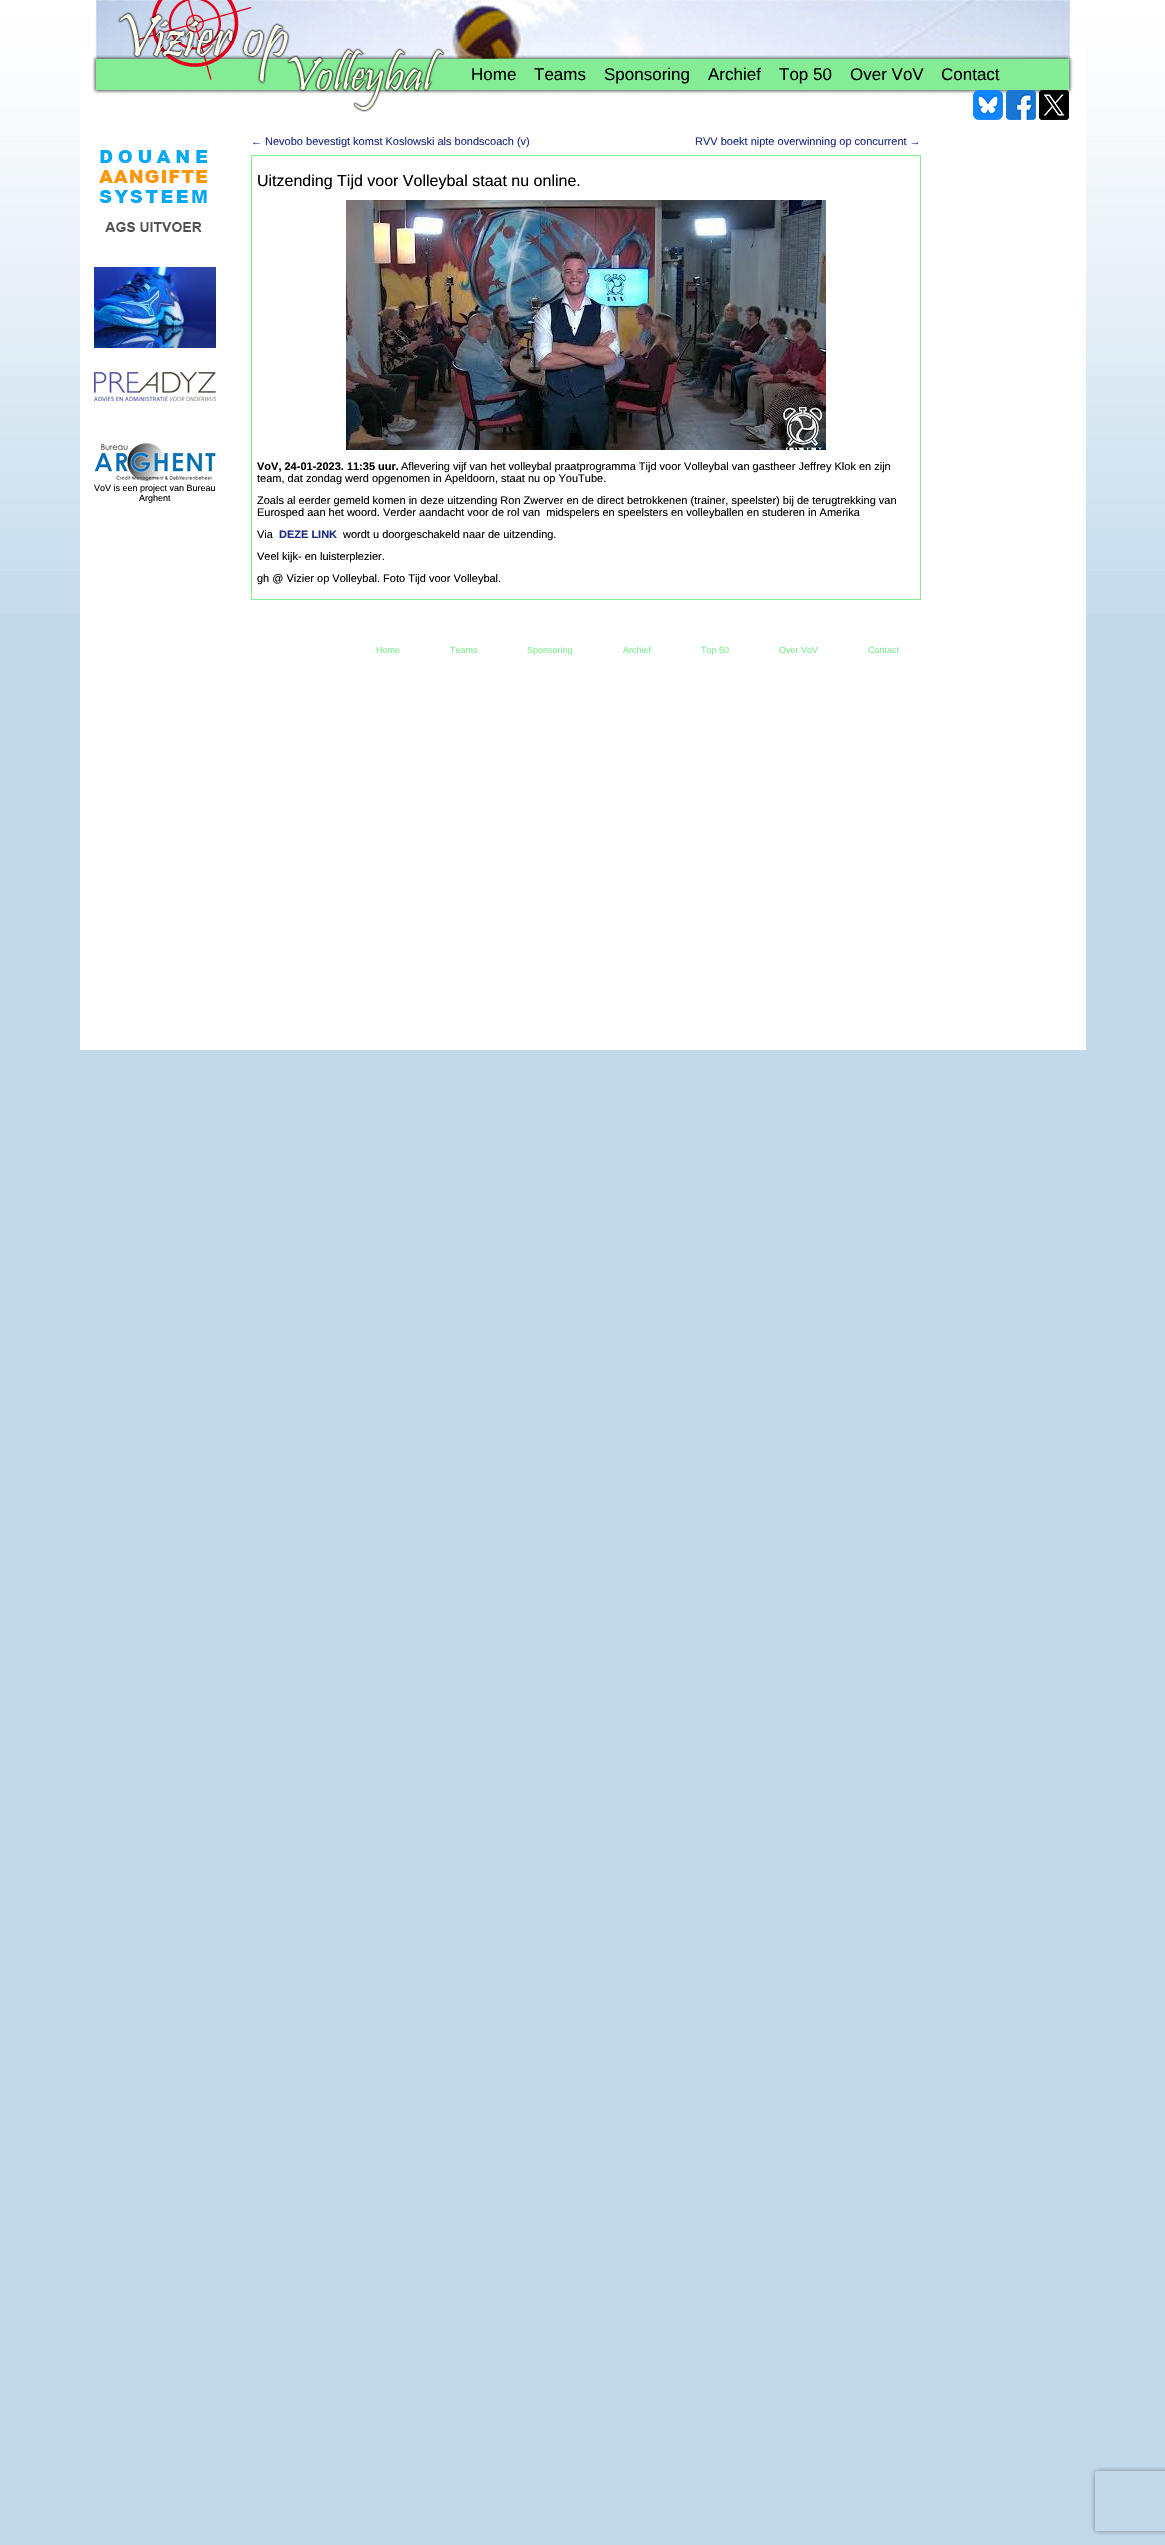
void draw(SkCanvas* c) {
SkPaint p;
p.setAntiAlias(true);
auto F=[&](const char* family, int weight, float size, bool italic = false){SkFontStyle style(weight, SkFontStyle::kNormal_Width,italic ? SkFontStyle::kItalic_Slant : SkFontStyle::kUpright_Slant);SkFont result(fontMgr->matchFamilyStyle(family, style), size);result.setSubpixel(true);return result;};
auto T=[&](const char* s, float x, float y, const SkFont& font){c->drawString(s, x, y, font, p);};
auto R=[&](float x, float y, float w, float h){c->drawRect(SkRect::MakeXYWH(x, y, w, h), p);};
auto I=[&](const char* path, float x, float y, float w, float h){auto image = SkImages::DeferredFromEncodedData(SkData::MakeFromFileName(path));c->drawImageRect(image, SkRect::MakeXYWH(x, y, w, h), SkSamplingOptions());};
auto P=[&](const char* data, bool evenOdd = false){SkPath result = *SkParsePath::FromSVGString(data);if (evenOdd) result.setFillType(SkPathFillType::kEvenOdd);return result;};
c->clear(0xffc2d9ea);
I("1.png",0,0,1165,614);
p.setColor(0xffffffff);
R(80,49,1006,1001);
I("2.png",92,0,981,96);
I("3.png",117,0,328,112);
auto f1 = F("Liberation Sans",400,17);
p.setColor(0xff000000);
T("Home",471,80,f1);
T("Teams",534,80,f1);
T("Sponsoring",604,80,f1);
T("Archief",708,80,f1);
T("Top 50",779,80,f1);
T("Over VoV",850,80,f1);
T("Contact",941,80,f1);
I("4.png",973,90,30,30);
I("5.png",1006,90,30,30);
I("6.png",1039,90,30,30);
I("7.png",99,150,109,82);
I("8.png",94,267,122,81);
I("9.png",94,372,122,29);
I("10.png",94,443,122,38);
auto f2 = F("Liberation Sans",400,9);
T("VoV is een project van Bureau",94,491,f2);
T("Arghent",139,501,f2);
auto f3 = F("Liberation Sans",400,11);
p.setColor(0xff1c2b81);
T("← Nevobo bevestigt komst Koslowski als bondscoach (v)",251,145,f3);
T("RVV boekt nipte overwinning op concurrent →",695,145,f3);
p.setStroke(true);
p.setStrokeWidth(1);
p.setColor(0xff83ec95);
c->drawRect(SkRect::MakeXYWH(251.5,155.5,669,444),p);
auto f4 = F("Liberation Sans",400,16);
p.setStroke(false);
p.setColor(0xff000000);
T("Uitzending Tijd voor Volleybal staat nu online.",257,186,f4);
I("11.png",346,200,480,250);
auto f5 = F("Liberation Sans",700,11);
T("VoV, 24-01-2023. 11:35 uur.",257,470,f5);
T("Aflevering vijf van het volleybal praatprogramma Tijd voor Volleybal van gastheer Jeffrey Klok en zijn",401,470,f3);
T("team, dat zondag werd opgenomen in Apeldoorn, staat nu op YouTube.",257,482,f3);
T("Zoals al eerder gemeld komen in deze uitzending Ron Zwerver en de direct betrokkenen (trainer, speelster) bij de terugtrekking van",257,504,f3);
T("Eurosped aan het woord. Verder aandacht voor de rol van  midspelers en speelsters en volleyballen en studeren in Amerika",257,516,f3);
T("Via",257,538,f3);
p.setColor(0xff1c2b81);
T("DEZE LINK",279,538,f5);
p.setColor(0xff000000);
T("wordt u doorgeschakeld naar de uitzending.",343,538,f3);
T("Veel kijk- en luisterplezier.",257,560,f3);
T("gh @ Vizier op Volleybal. Foto Tijd voor Volleybal.",257,582,f3);
p.setColor(0xff83ec95);
T("Home",376,653,f2);
T("Teams",450,653,f2);
T("Sponsoring",527,653,f2);
T("Archief",623,653,f2);
T("Top 50",701,653,f2);
T("Over VoV",779,653,f2);
T("Contact",868,653,f2);
c->save();
c->clipPath(P("M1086 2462h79v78h-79zm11 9h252c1 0 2 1 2 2v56c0 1-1 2-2 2h-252c-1 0-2-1-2-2v-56c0-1 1-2 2-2z",true),true);
p.setColor(0xff808080);
p.setMaskFilter(SkMaskFilter::MakeBlur(kNormal_SkBlurStyle, 2.5));
c->drawRoundRect(SkRect::MakeXYWH(1095,2471,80,60),2,2,p);
p.setMaskFilter(nullptr);
c->restore();
}
